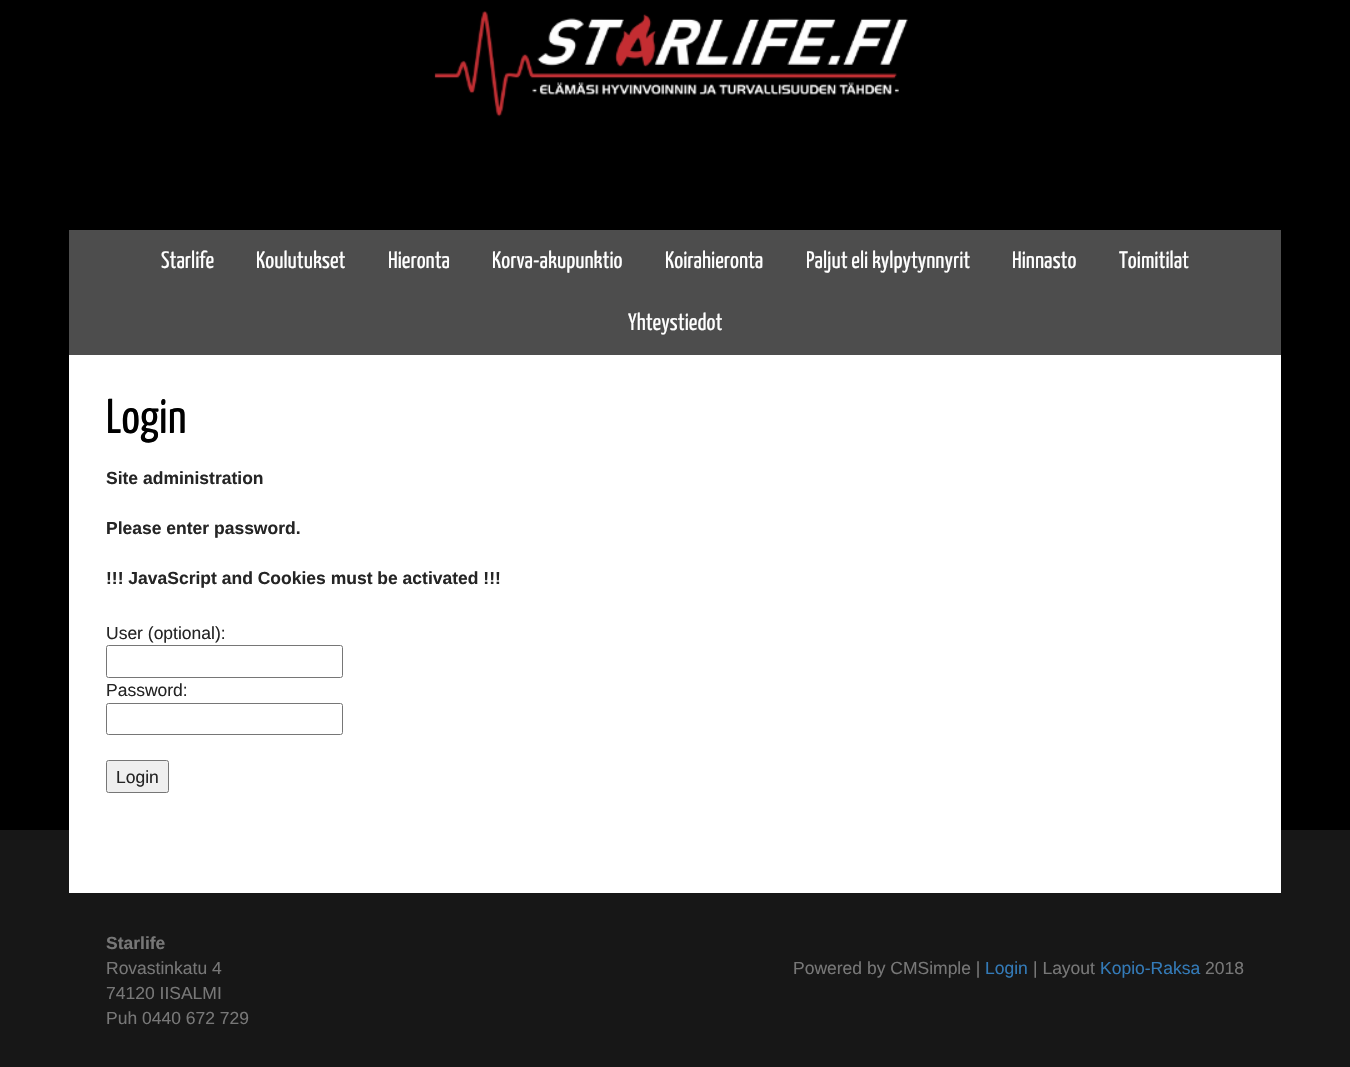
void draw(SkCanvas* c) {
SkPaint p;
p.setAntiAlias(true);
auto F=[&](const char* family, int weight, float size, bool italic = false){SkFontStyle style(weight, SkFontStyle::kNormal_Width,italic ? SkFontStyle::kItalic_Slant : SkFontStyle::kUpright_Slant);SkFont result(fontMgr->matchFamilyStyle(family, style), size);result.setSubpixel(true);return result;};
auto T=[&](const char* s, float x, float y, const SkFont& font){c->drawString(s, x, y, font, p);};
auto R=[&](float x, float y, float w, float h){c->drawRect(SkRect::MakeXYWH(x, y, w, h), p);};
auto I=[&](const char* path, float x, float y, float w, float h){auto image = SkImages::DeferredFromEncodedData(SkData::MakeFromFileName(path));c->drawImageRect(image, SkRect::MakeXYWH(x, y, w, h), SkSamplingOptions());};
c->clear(0xff000000);
I("1.png",434,11,474,106);
p.setColor(0xff4d4d4d);
R(69,230,1212,125);
auto f1 = F("Yanone Kaffeesatz",200,23.75);
p.setColor(0xffffffff);
T("Starlife",161,268,f1);
T("Koulutukset",256,268,f1);
T("Hieronta",388,268,f1);
T("Korva-akupunktio",492,268,f1);
T("Koirahieronta",665,268,f1);
T("Paljut eli kylpytynnyrit",806,268,f1);
T("Hinnasto",1012,268,f1);
T("Toimitilat",1119,268,f1);
T("Yhteystiedot",628,330,f1);
R(69,355,1212,475);
auto f2 = F("Yanone Kaffeesatz",200,49);
p.setColor(0xff000000);
T("Login",106,433,f2);
auto f3 = F("Liberation Sans",700,17.5);
p.setColor(0xff252525);
T("Site administration",106,484,f3);
T("Please enter password.",106,534,f3);
T("!!! JavaScript and Cookies must be activated !!!",106,584,f3);
auto f4 = F("Liberation Sans",400,17.5);
T("User (optional):",106,639,f4);
p.setStroke(true);
p.setStrokeWidth(1);
p.setColor(0xff767676);
c->drawRoundRect(SkRect::MakeXYWH(106.5,645.5,236,32),2,2,p);
p.setStroke(false);
p.setColor(0xff252525);
T("Password:",106,696,f4);
p.setStroke(true);
p.setColor(0xff767676);
c->drawRoundRect(SkRect::MakeXYWH(106.5,703.5,236,31),2,2,p);
p.setStroke(false);
p.setColor(0xffefefef);
c->drawRoundRect(SkRect::MakeXYWH(106.5,760.5,62,32),2,2,p);
p.setStroke(true);
p.setColor(0xff767676);
c->drawRoundRect(SkRect::MakeXYWH(106.5,760.5,62,32),2,2,p);
p.setStroke(false);
p.setColor(0xff252525);
T("Login",116,783,f4);
p.setColor(0xff171717);
R(0,830,1350,237);
p.setColor(0xffffffff);
R(69,830,1212,63);
p.setColor(0xff777777);
T("Starlife",106,949,f3);
T("Rovastinkatu 4",106,974,f4);
T("74120 IISALMI",106,999,f4);
T("Puh 0440 672 729",106,1024,f4);
T("Powered by CMSimple |",793,974,f4);
p.setColor(0xff337ab7);
T("Login",985,974,f4);
p.setColor(0xff777777);
T("| Layout",1033,974,f4);
p.setColor(0xff337ab7);
T("Kopio-Raksa",1100,974,f4);
p.setColor(0xff777777);
T("2018",1205,974,f4);
}
